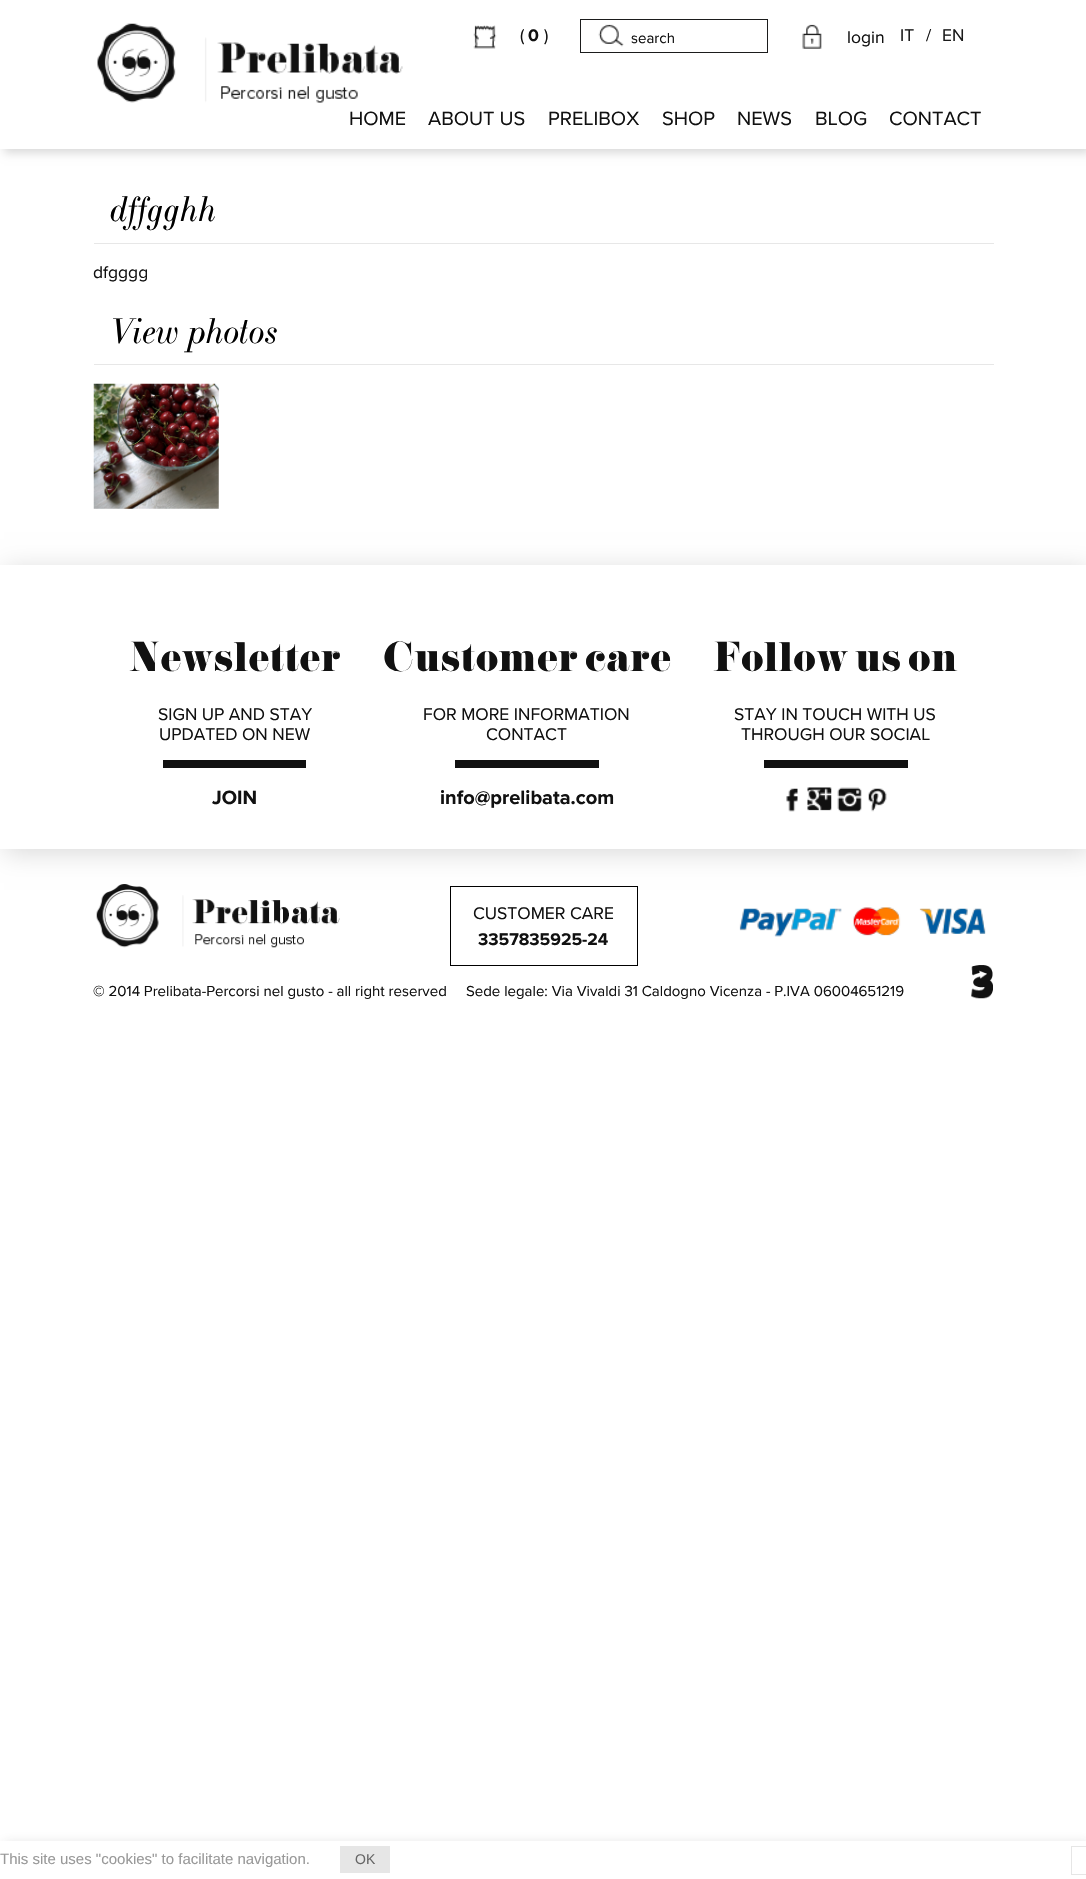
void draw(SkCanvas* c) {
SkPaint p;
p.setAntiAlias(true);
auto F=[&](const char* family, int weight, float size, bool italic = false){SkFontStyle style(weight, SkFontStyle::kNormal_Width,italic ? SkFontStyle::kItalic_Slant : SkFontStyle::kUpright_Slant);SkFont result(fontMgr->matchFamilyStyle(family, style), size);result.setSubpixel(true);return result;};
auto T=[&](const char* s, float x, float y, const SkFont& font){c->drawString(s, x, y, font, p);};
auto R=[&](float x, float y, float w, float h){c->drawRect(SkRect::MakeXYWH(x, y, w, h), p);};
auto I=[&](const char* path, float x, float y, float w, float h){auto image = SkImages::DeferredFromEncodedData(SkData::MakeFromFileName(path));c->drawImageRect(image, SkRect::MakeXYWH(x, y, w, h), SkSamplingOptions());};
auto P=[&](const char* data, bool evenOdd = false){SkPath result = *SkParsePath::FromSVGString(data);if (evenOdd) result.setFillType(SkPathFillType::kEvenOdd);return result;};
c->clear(0xffffffff);
p.setColor(0x26000000);
p.setMaskFilter(SkMaskFilter::MakeBlur(kNormal_SkBlurStyle, 4.5));
c->drawRect(SkRect::MakeXYWH(4,4,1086,149),p);
p.setMaskFilter(nullptr);
p.setColor(0xffffffff);
R(0,0,1086,149);
I("1.png",97,23,306,80);
I("2.png",473,25,24,24);
auto f1 = F("Proxima Nova",400,17.5);
p.setColor(0xff111111);
T("(",520,41,f1);
auto f2 = F("Proxima Nova",700,17.5);
T("0",528,41,f2);
T(")",544,41,f1);
I("3.png",598,24,26,23);
p.setStroke(true);
p.setStrokeWidth(1);
p.setColor(0xff1b1c1c);
c->drawRect(SkRect::MakeXYWH(580.5,19.5,187,33),p);
auto f3 = F("Proxima Nova",400,15);
p.setStroke(false);
p.setColor(0xff111111);
T("search",631,43,f3);
I("4.png",802,24,20,25);
T("login",847,43,f1);
p.setColor(0xff1a1a1a);
T("IT",900,41,f1);
p.setColor(0xff111111);
T("/",926,41,f1);
p.setColor(0xff1a1a1a);
T("EN",942,41,f1);
auto f4 = F("Proxima Nova",400,20);
p.setColor(0xff111111);
T("HOME",349,125,f4);
T("ABOUT US",428,125,f4);
T("PRELIBOX",548,125,f4);
T("SHOP",662,125,f4);
T("NEWS",737,125,f4);
T("BLOG",815,125,f4);
T("CONTACT",889,125,f4);
p.setColor(0xffe7e7e7);
R(94,243,900,1);
auto f5 = F("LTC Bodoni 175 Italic",400,35,true);
p.setColor(0xff000000);
T("dffgghh",111,221,f5);
p.setColor(0xff111111);
T("dfgggg",93,278,f1);
p.setColor(0xffe7e7e7);
R(94,364,900,1);
p.setColor(0xff000000);
T("View photos",111,343,f5);
I("5.png",93,383,126,126);
c->save();
c->clipPath(P("M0 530h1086v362h-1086zm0 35h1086v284h-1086z",true),true);
p.setColor(0x26000000);
p.setMaskFilter(SkMaskFilter::MakeBlur(kNormal_SkBlurStyle, 12.5));
c->drawRect(SkRect::MakeXYWH(4,569,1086,284),p);
p.setMaskFilter(nullptr);
c->restore();
auto f6 = F("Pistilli",400,37.5);
p.setColor(0xff111111);
T("Newsletter",129,671,f6);
T("SIGN UP AND STAY",158,720,f1);
T("UPDATED ON NEW",159,740,f1);
R(163,760,143,8);
auto f7 = F("Proxima Nova",700,20);
T("JOIN",212,804,f7);
T("Customer care",383,671,f6);
T("FOR MORE INFORMATION",423,720,f1);
T("CONTACT",486,740,f1);
R(455,760,144,8);
T("info@prelibata.com",440,804,f7);
T("Follow us on",713,671,f6);
T("STAY IN TOUCH WITH US",734,720,f1);
T("THROUGH OUR SOCIAL",741,740,f1);
R(764,760,144,8);
I("6.png",786,788,12,24);
I("7.png",807,787,25,24);
I("8.png",837,787,25,25);
I("9.png",868,788,19,24);
I("10.png",96,884,244,64);
p.setStroke(true);
p.setColor(0xff000000);
c->drawRect(SkRect::MakeXYWH(450.5,886.5,187,79),p);
p.setStroke(false);
p.setColor(0xff111111);
T("CUSTOMER CARE",473,919,f1);
T("3357835925-24",478,945,f2);
I("11.png",739,907,247,30);
T("© 2014 Prelibata-Percorsi nel gusto - all right reserved",93,996,f3);
T("Sede legale: Via Vivaldi 31 Caldogno Vicenza - P.IVA 06004651219",466,996,f3);
I("12.png",971,965,22,34);
p.setColor(0x26323232);
p.setMaskFilter(SkMaskFilter::MakeBlur(kNormal_SkBlurStyle, 5.5));
c->drawRect(SkRect::MakeXYWH(4,1843,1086,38),p);
p.setMaskFilter(nullptr);
p.setColor(0xffffffff);
R(0,1841,1086,38);
auto f8 = F("Liberation Sans",400,15);
p.setColor(0xff999999);
T("This site uses \"cookies\" to facilitate navigation.",0,1864,f8);
p.setColor(0xffe6e6e6);
R(340,1846,50,27);
auto f9 = F("Liberation Sans",400,14);
p.setColor(0xff666666);
T("OK",355,1864,f9);
p.setStroke(true);
p.setColor(0xffe6e6e6);
c->drawRect(SkRect::MakeXYWH(1071.5,1846.5,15,28),p);
}
